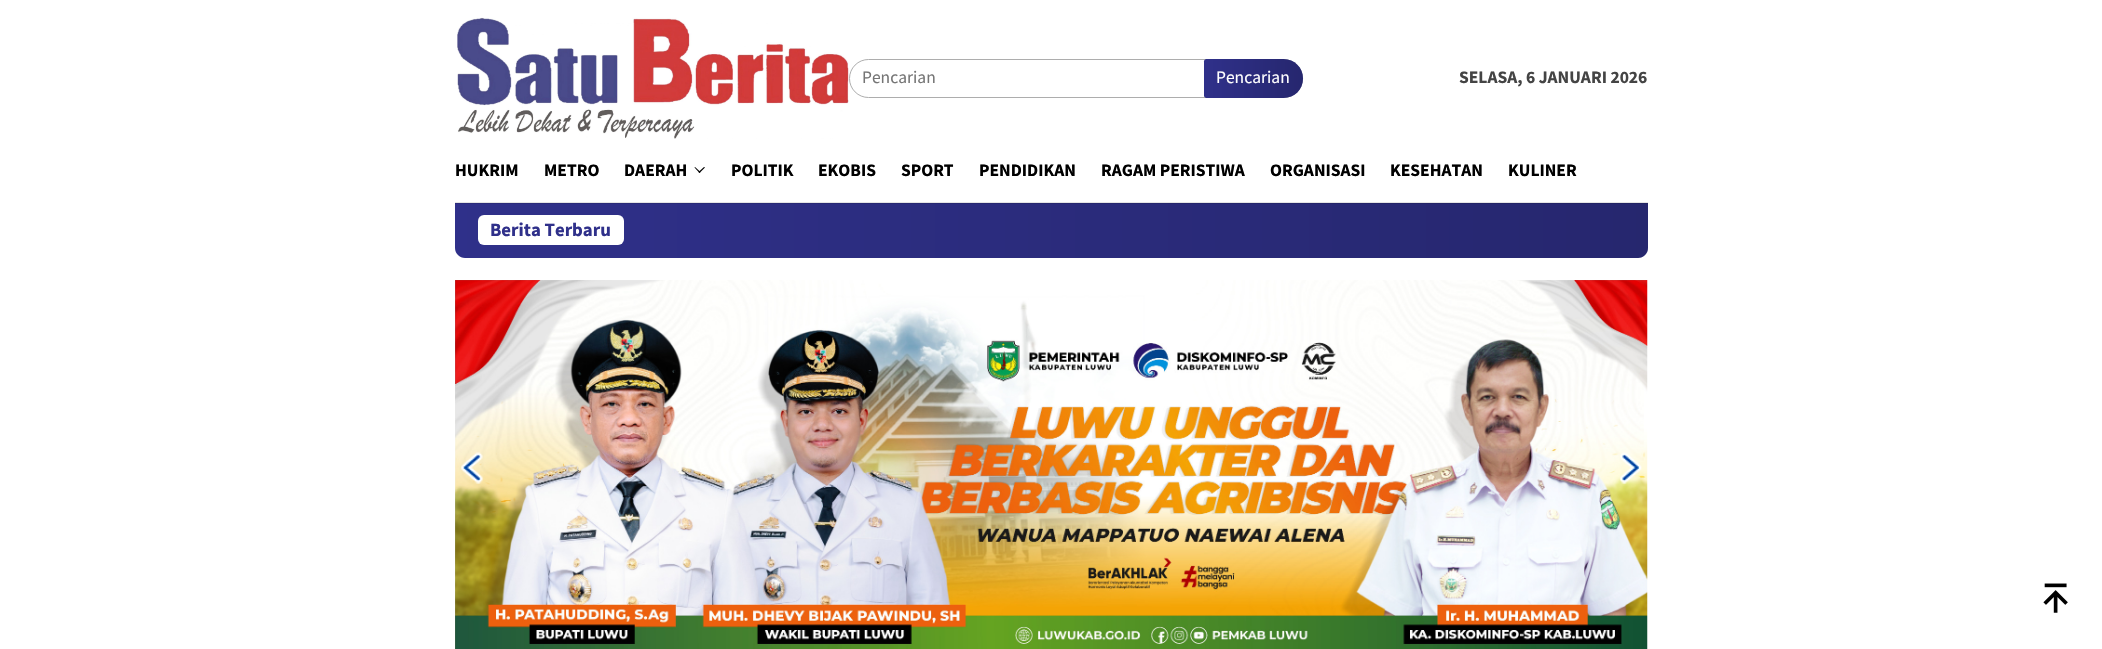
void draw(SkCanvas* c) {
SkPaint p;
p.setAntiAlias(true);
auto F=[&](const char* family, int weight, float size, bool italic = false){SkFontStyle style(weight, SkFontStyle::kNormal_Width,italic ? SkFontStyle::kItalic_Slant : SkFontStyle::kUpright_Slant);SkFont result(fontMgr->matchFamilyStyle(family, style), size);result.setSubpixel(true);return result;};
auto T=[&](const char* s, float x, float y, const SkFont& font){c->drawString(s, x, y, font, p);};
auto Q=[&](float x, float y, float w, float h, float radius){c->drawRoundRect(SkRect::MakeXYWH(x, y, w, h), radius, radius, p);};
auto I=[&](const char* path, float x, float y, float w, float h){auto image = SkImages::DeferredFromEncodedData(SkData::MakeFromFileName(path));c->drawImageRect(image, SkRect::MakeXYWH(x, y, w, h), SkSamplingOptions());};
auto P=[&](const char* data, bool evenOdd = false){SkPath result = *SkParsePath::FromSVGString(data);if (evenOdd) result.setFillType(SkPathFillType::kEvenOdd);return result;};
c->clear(0xffffffff);
I("1.png",457,17,392,122);
p.setStroke(true);
p.setStrokeWidth(1);
p.setColor(0xffadadad);
c->drawRoundRect(SkRect::MakeXYWH(849.5,59.5,453,38),19,19,p);
auto f1 = F("Source Sans Pro",400,17.5);
p.setStroke(false);
p.setColor(0xff757575);
T("Pencarian",862,83,f1);
p.setColor(0xff2f308a);
c->drawPath(P("M1206.5 59h77c11 0 19.5 8.5 19.5 19.5c0 11-8.5 19.5-19.5 19.5h-77c-1.5 0-2.5-1-2.5-2.5v-34c0-1.5 1-2.5 2.5-2.5z"),p);
{
const SkColor colors[] = {0x00000000,0x33000000};
const float stops[] = {0,1};
const SkPoint ends[] = {{1204,78}, {1303,78}};
p.setShader(SkGradientShader::MakeLinear(ends, colors, stops, 2, SkTileMode::kClamp));
p.setAlpha(255);
}
c->drawPath(P("M1206.5 59h77c11 0 19.5 8.5 19.5 19.5c0 11-8.5 19.5-19.5 19.5h-77c-1.5 0-2.5-1-2.5-2.5v-34c0-1.5 1-2.5 2.5-2.5z"),p);
p.setShader(nullptr);
p.setColor(0xffffffff);
T("Pencarian",1216,83,f1);
auto f2 = F("Source Sans Pro",700,17.5);
p.setColor(0xff444444);
T("SELASA, 6 JANUARI 2026",1459,83,f2);
p.setColor(0xff2f308a);
c->drawPath(P("M455 203h1193v45c0 5.5-4.5 10-10 10h-1173c-5.5 0-10-4.5-10-10z"),p);
{
const SkColor colors[] = {0x00000000,0x33000000};
const float stops[] = {0,1};
const SkPoint ends[] = {{455,230}, {1648,230}};
p.setShader(SkGradientShader::MakeLinear(ends, colors, stops, 2, SkTileMode::kClamp));
p.setAlpha(255);
}
c->drawPath(P("M455 203h1193v45c0 5.5-4.5 10-10 10h-1173c-5.5 0-10-4.5-10-10z"),p);
p.setShader(nullptr);
p.setColor(0x1a000000);
c->drawPath(P("M455 202v2h1193v-64v62z"),p);
p.setColor(0xff000000);
T("HUKRIM",455,176,f2);
T("METRO",544,176,f2);
T("DAERAH",624,176,f2);
c->drawPath(P("M704 167l1 .5l-5.5 5.5l-1-1z"),p);
c->drawPath(P("M695 167l5.5 5l-1 1l-5-5.5z"),p);
T("POLITIK",731,176,f2);
T("EKOBIS",818,176,f2);
T("SPORT",901,176,f2);
T("PENDIDIKAN",979,176,f2);
T("RAGAM PERISTIWA",1101,176,f2);
T("ORGANISASI",1270,176,f2);
T("KESEHATAN",1390,176,f2);
T("KULINER",1508,176,f2);
p.setColor(0xffffffff);
Q(478,215,146,30,6);
auto f3 = F("Source Sans Pro",700,18.75);
p.setColor(0xff2f308a);
T("Berita Terbaru",490,236,f3);
I("2.png",455,280,1193,369);
I("3.png",461,452,22,32);
I("4.png",1620,452,22,32);
I("5.png",2043,583,25,30);
}
